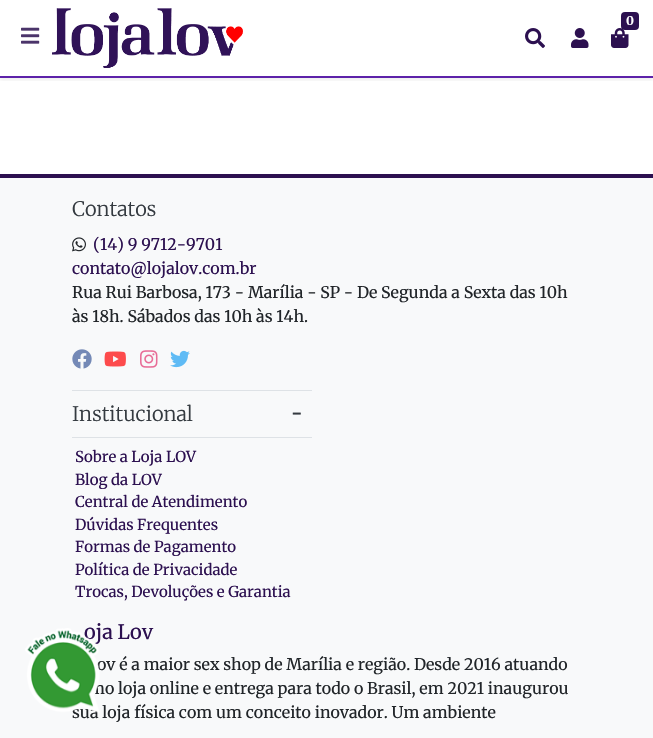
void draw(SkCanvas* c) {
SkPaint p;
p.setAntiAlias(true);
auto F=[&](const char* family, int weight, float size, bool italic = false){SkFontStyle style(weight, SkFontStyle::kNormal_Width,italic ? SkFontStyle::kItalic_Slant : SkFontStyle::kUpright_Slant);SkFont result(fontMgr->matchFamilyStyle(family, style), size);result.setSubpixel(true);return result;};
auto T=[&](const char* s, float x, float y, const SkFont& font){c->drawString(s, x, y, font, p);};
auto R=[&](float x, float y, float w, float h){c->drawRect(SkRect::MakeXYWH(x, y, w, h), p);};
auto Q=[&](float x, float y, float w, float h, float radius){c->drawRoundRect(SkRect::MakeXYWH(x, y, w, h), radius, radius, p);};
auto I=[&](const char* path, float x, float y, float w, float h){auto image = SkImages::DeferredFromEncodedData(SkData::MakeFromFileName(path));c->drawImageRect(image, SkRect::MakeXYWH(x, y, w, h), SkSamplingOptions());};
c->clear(0xffffffff);
p.setColor(0xfff8f9fa);
R(0,178,653,560);
auto f1 = F("Merriweather",400,20);
p.setColor(0xff2c1050);
T("oja Lov",84,639,f1);
auto f2 = F("Merriweather",400,16);
p.setColor(0xff212529);
T("ov é a maior sex shop de Marília e região. Desde 2016 atuando",97,670,f2);
T("mo loja online e entrega para todo o Brasil, em 2021 inaugurou",89,694,f2);
T("sua loja física com um conceito inovador. Um ambiente",72,718,f2);
I("1.png",25,628,75,85);
c->save();
c->clipRect(SkRect::MakeXYWH(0,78,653,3));
p.setColor(0x12000000);
p.setMaskFilter(SkMaskFilter::MakeBlur(kNormal_SkBlurStyle, 2));
c->drawRect(SkRect::MakeXYWH(0,2,653,78),p);
p.setMaskFilter(nullptr);
c->restore();
p.setColor(0xff5d22a9);
R(0,76,653,2);
I("2.png",52,8,191,60);
I("3.png",611,28,18,20);
p.setColor(0xff2c1050);
Q(621,12,18,18,4);
auto f3 = F("Merriweather",700,12);
p.setColor(0xffffffff);
T("0",626,25,f3);
I("4.png",525,28,20,20);
I("5.png",571,28,18,20);
I("6.png",21,27,19,17);
p.setColor(0xff2c1050);
R(0,174,653,4);
auto f4 = F("Merriweather",300,20);
p.setColor(0xff343a40);
T("Contatos",72,216,f4);
I("7.png",72,237,14,15);
p.setColor(0xff2c1050);
T("(14) 9 9712-9701",93,250,f2);
T("contato@lojalov.com.br",72,274,f2);
p.setColor(0xff212529);
T("Rua Rui Barbosa, 173 - Marília - SP - De Segunda a Sexta das 10h",72,298,f2);
T("às 18h. Sábados das 10h às 14h.",72,322,f2);
I("8.png",72,349,20,20);
I("9.png",104,351,22,16);
I("10.png",140,350,18,18);
I("11.png",170,350,20,18);
p.setColor(0xffdee2e6);
R(72,390,240,1);
R(72,437,240,1);
p.setColor(0xff343a40);
T("Institucional",72,421,f4);
auto f5 = F("Merriweather",700,20);
T("-",291,420,f5);
auto f6 = F("Merriweather",400,15);
p.setColor(0xff2c1050);
T("Sobre a Loja LOV",75,462,f6);
T("Blog da LOV",75,485,f6);
T("Central de Atendimento",75,507,f6);
T("Dúvidas Frequentes",75,530,f6);
T("Formas de Pagamento",75,552,f6);
T("Política de Privacidade",75,575,f6);
T("Trocas, Devoluções e Garantia",75,597,f6);
}
